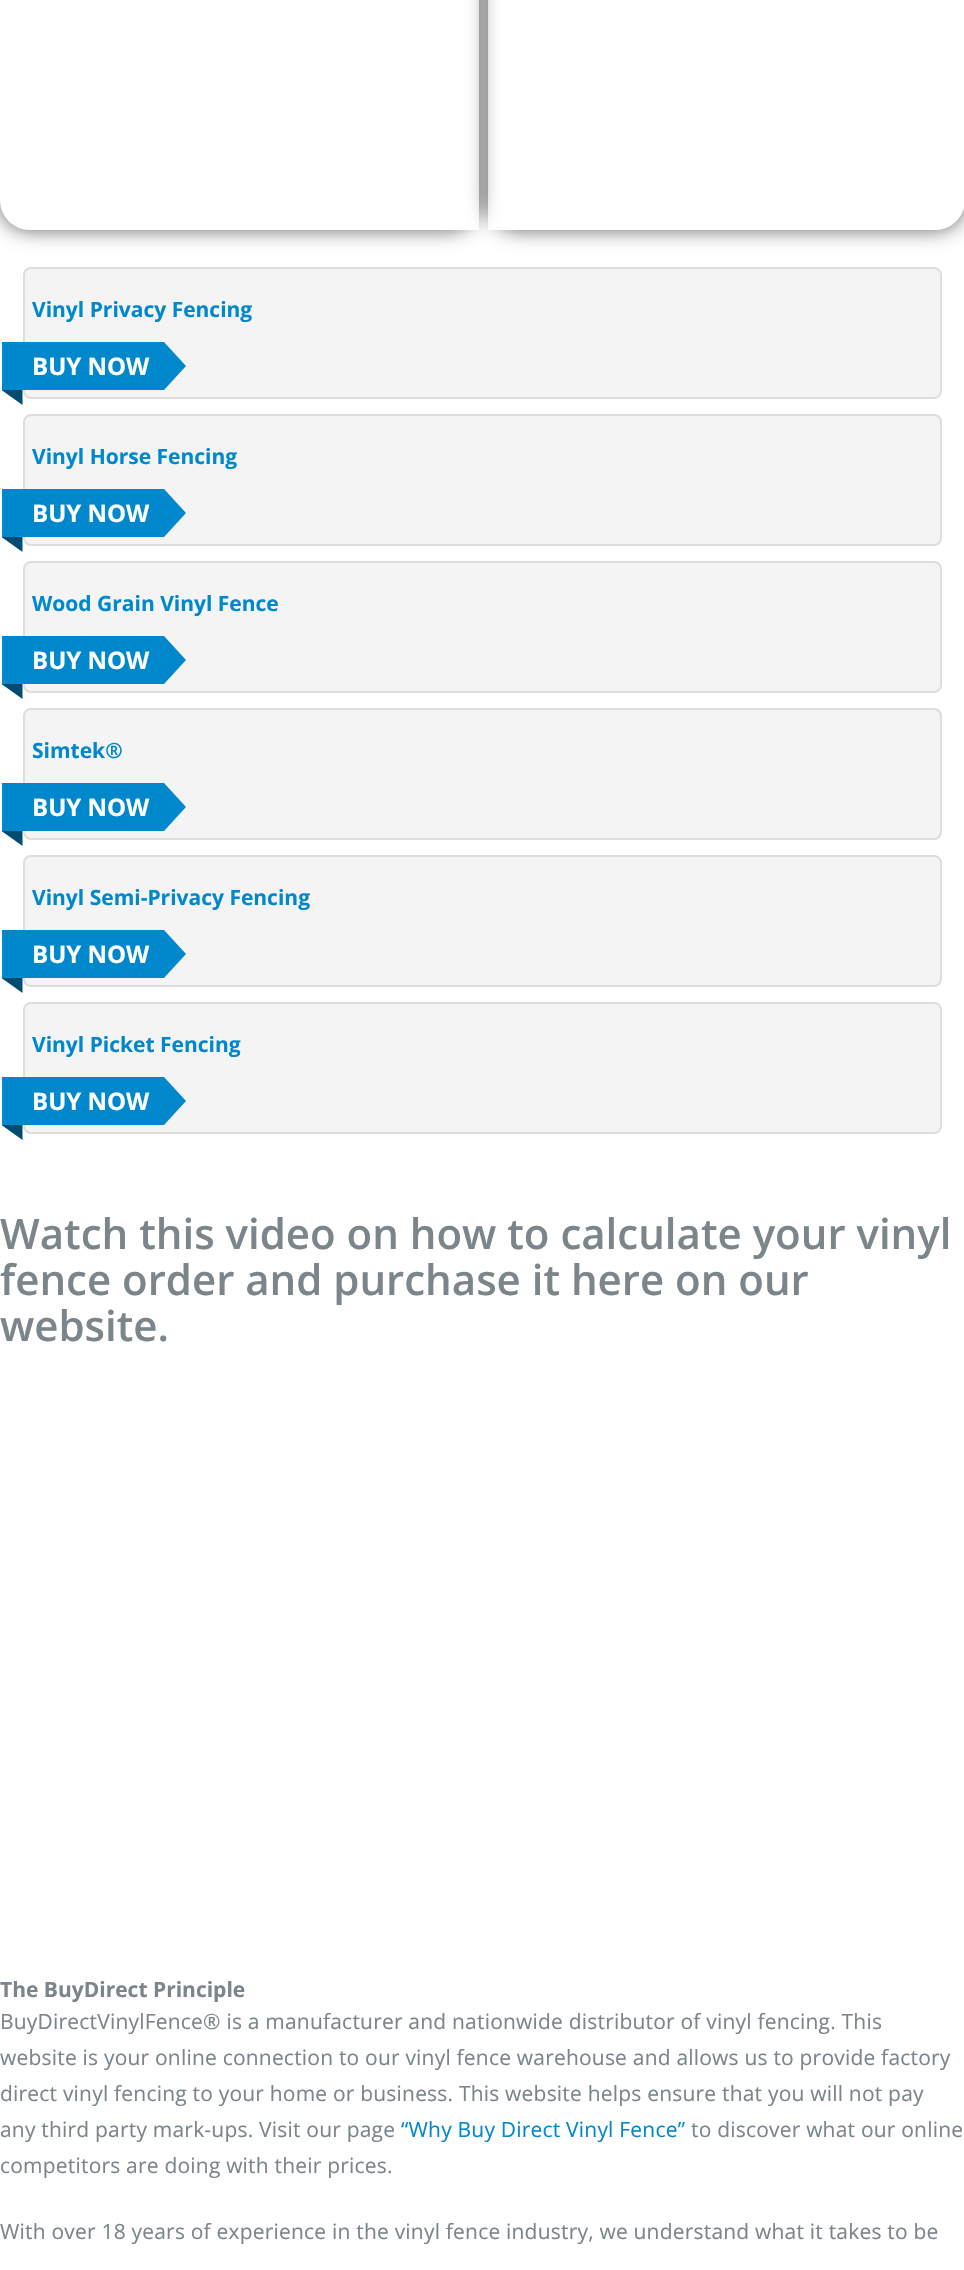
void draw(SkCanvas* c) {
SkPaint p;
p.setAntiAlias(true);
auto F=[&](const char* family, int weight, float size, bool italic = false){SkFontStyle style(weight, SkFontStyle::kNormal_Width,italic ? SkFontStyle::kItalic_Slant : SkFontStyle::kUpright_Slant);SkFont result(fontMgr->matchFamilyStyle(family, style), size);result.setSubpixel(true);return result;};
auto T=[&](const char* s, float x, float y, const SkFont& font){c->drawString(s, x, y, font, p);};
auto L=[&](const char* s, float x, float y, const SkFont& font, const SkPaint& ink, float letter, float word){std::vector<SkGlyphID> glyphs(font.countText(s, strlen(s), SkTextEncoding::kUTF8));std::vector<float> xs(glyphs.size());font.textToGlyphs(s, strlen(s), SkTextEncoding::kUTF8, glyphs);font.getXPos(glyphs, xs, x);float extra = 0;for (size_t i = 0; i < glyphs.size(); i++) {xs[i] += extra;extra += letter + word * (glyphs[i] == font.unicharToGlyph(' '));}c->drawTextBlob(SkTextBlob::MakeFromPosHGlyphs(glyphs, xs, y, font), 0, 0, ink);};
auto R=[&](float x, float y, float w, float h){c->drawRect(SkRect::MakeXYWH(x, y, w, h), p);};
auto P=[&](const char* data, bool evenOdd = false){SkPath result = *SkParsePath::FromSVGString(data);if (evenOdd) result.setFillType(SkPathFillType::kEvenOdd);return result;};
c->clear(0xffffffff);
c->save();
c->clipPath(P("M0 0h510v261h-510zm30-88h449v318h-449c-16.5 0-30-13.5-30-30v-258c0-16.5 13.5-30 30-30z",true),true);
p.setColor(0x99000000);
p.setMaskFilter(SkMaskFilter::MakeBlur(kNormal_SkBlurStyle, 10));
c->drawRoundRect(SkRect::MakeXYWH(0,-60,479,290),30,30,p);
p.setMaskFilter(nullptr);
c->restore();
c->save();
c->clipPath(P("M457 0h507v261h-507zm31-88h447c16.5 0 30 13.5 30 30v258c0 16.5-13.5 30-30 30h-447z",true),true);
p.setMaskFilter(SkMaskFilter::MakeBlur(kNormal_SkBlurStyle, 10));
c->drawRoundRect(SkRect::MakeXYWH(488,-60,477,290),30,30,p);
p.setMaskFilter(nullptr);
c->restore();
p.setColor(0xfff4f4f4);
c->drawRoundRect(SkRect::MakeXYWH(24,268,917,130),7,7,p);
p.setStroke(true);
p.setStrokeWidth(2);
p.setColor(0xffdddddd);
c->drawRoundRect(SkRect::MakeXYWH(24,268,917,130),7,7,p);
auto f1 = F("Open Sans",700,21);
p.setStroke(false);
p.setColor(0xff0188cc);
T("Vinyl Privacy Fencing",32,317,f1);
R(2,342,162,48);
auto f2 = F("Open Sans",700,24);
p.setColor(0xffffffff);
T("BUY NOW",32,375,f2);
p.setColor(0xff0188cc);
c->drawPath(P("M164 390v-48l22 24z"),p);
p.setColor(0xff034c71);
c->drawPath(P("M22.5 390v15l-21-15z"),p);
p.setColor(0xfff4f4f4);
c->drawRoundRect(SkRect::MakeXYWH(24,415,917,130),7,7,p);
p.setStroke(true);
p.setColor(0xffdddddd);
c->drawRoundRect(SkRect::MakeXYWH(24,415,917,130),7,7,p);
p.setStroke(false);
p.setColor(0xff0188cc);
T("Vinyl Horse Fencing",32,464,f1);
R(2,489,162,48);
p.setColor(0xffffffff);
T("BUY NOW",32,522,f2);
p.setColor(0xff0188cc);
c->drawPath(P("M164 537v-48l22 24z"),p);
p.setColor(0xff034c71);
c->drawPath(P("M22.5 537v15l-21-15z"),p);
p.setColor(0xfff4f4f4);
c->drawRoundRect(SkRect::MakeXYWH(24,562,917,130),7,7,p);
p.setStroke(true);
p.setColor(0xffdddddd);
c->drawRoundRect(SkRect::MakeXYWH(24,562,917,130),7,7,p);
p.setStroke(false);
p.setColor(0xff0188cc);
T("Wood Grain Vinyl Fence",32,611,f1);
R(2,636,162,48);
p.setColor(0xffffffff);
T("BUY NOW",32,669,f2);
p.setColor(0xff0188cc);
c->drawPath(P("M164 684v-48l22 24z"),p);
p.setColor(0xff034c71);
c->drawPath(P("M22.5 684v15l-21-15z"),p);
p.setColor(0xfff4f4f4);
c->drawRoundRect(SkRect::MakeXYWH(24,709,917,130),7,7,p);
p.setStroke(true);
p.setColor(0xffdddddd);
c->drawRoundRect(SkRect::MakeXYWH(24,709,917,130),7,7,p);
p.setStroke(false);
p.setColor(0xff0188cc);
T("Simtek®",32,758,f1);
R(2,783,162,48);
p.setColor(0xffffffff);
T("BUY NOW",32,816,f2);
p.setColor(0xff0188cc);
c->drawPath(P("M164 831v-48l22 24z"),p);
p.setColor(0xff034c71);
c->drawPath(P("M22.5 831v15l-21-15z"),p);
p.setColor(0xfff4f4f4);
c->drawRoundRect(SkRect::MakeXYWH(24,856,917,130),7,7,p);
p.setStroke(true);
p.setColor(0xffdddddd);
c->drawRoundRect(SkRect::MakeXYWH(24,856,917,130),7,7,p);
p.setStroke(false);
p.setColor(0xff0188cc);
T("Vinyl Semi-Privacy Fencing",32,905,f1);
R(2,930,162,48);
p.setColor(0xffffffff);
T("BUY NOW",32,963,f2);
p.setColor(0xff0188cc);
c->drawPath(P("M164 978v-48l22 24z"),p);
p.setColor(0xff034c71);
c->drawPath(P("M22.5 978v15l-21-15z"),p);
p.setColor(0xfff4f4f4);
c->drawRoundRect(SkRect::MakeXYWH(24,1003,917,130),7,7,p);
p.setStroke(true);
p.setColor(0xffdddddd);
c->drawRoundRect(SkRect::MakeXYWH(24,1003,917,130),7,7,p);
p.setStroke(false);
p.setColor(0xff0188cc);
T("Vinyl Picket Fencing",32,1052,f1);
R(2,1077,162,48);
p.setColor(0xffffffff);
T("BUY NOW",32,1110,f2);
p.setColor(0xff0188cc);
c->drawPath(P("M164 1125v-48l22 24z"),p);
p.setColor(0xff034c71);
c->drawPath(P("M22.5 1125v15l-21-15z"),p);
auto f3 = F("Open Sans",600,42);
p.setColor(0xff7b858a);
T("Watch this video on how to calculate your vinyl",0,1249,f3);
T("fence order and purchase it here on our",0,1295,f3);
T("website.",0,1341,f3);
T("The BuyDirect Principle",0,1997,f1);
auto f4 = F("Open Sans",400,21);
L("BuyDirectVinylFence® is a manufacturer and nationwide distributor of vinyl fencing. This",0,2029,f4,p,.2,0);
L("website is your online connection to our vinyl fence warehouse and allows us to provide factory",0,2065,f4,p,.2,0);
L("direct vinyl fencing to your home or business. This website helps ensure that you will not pay",0,2101,f4,p,.2,0);
L("any third party mark-ups. Visit our page",0,2137,f4,p,.2,0);
p.setColor(0xff0188cc);
L("“Why Buy Direct Vinyl Fence”",401,2137,f4,p,.2,0);
p.setColor(0xff7b858a);
L("to discover what our online",691,2137,f4,p,.2,0);
L("competitors are doing with their prices.",0,2173,f4,p,.2,0);
L("With over 18 years of experience in the vinyl fence industry, we understand what it takes to be",0,2239,f4,p,.2,0);
}
